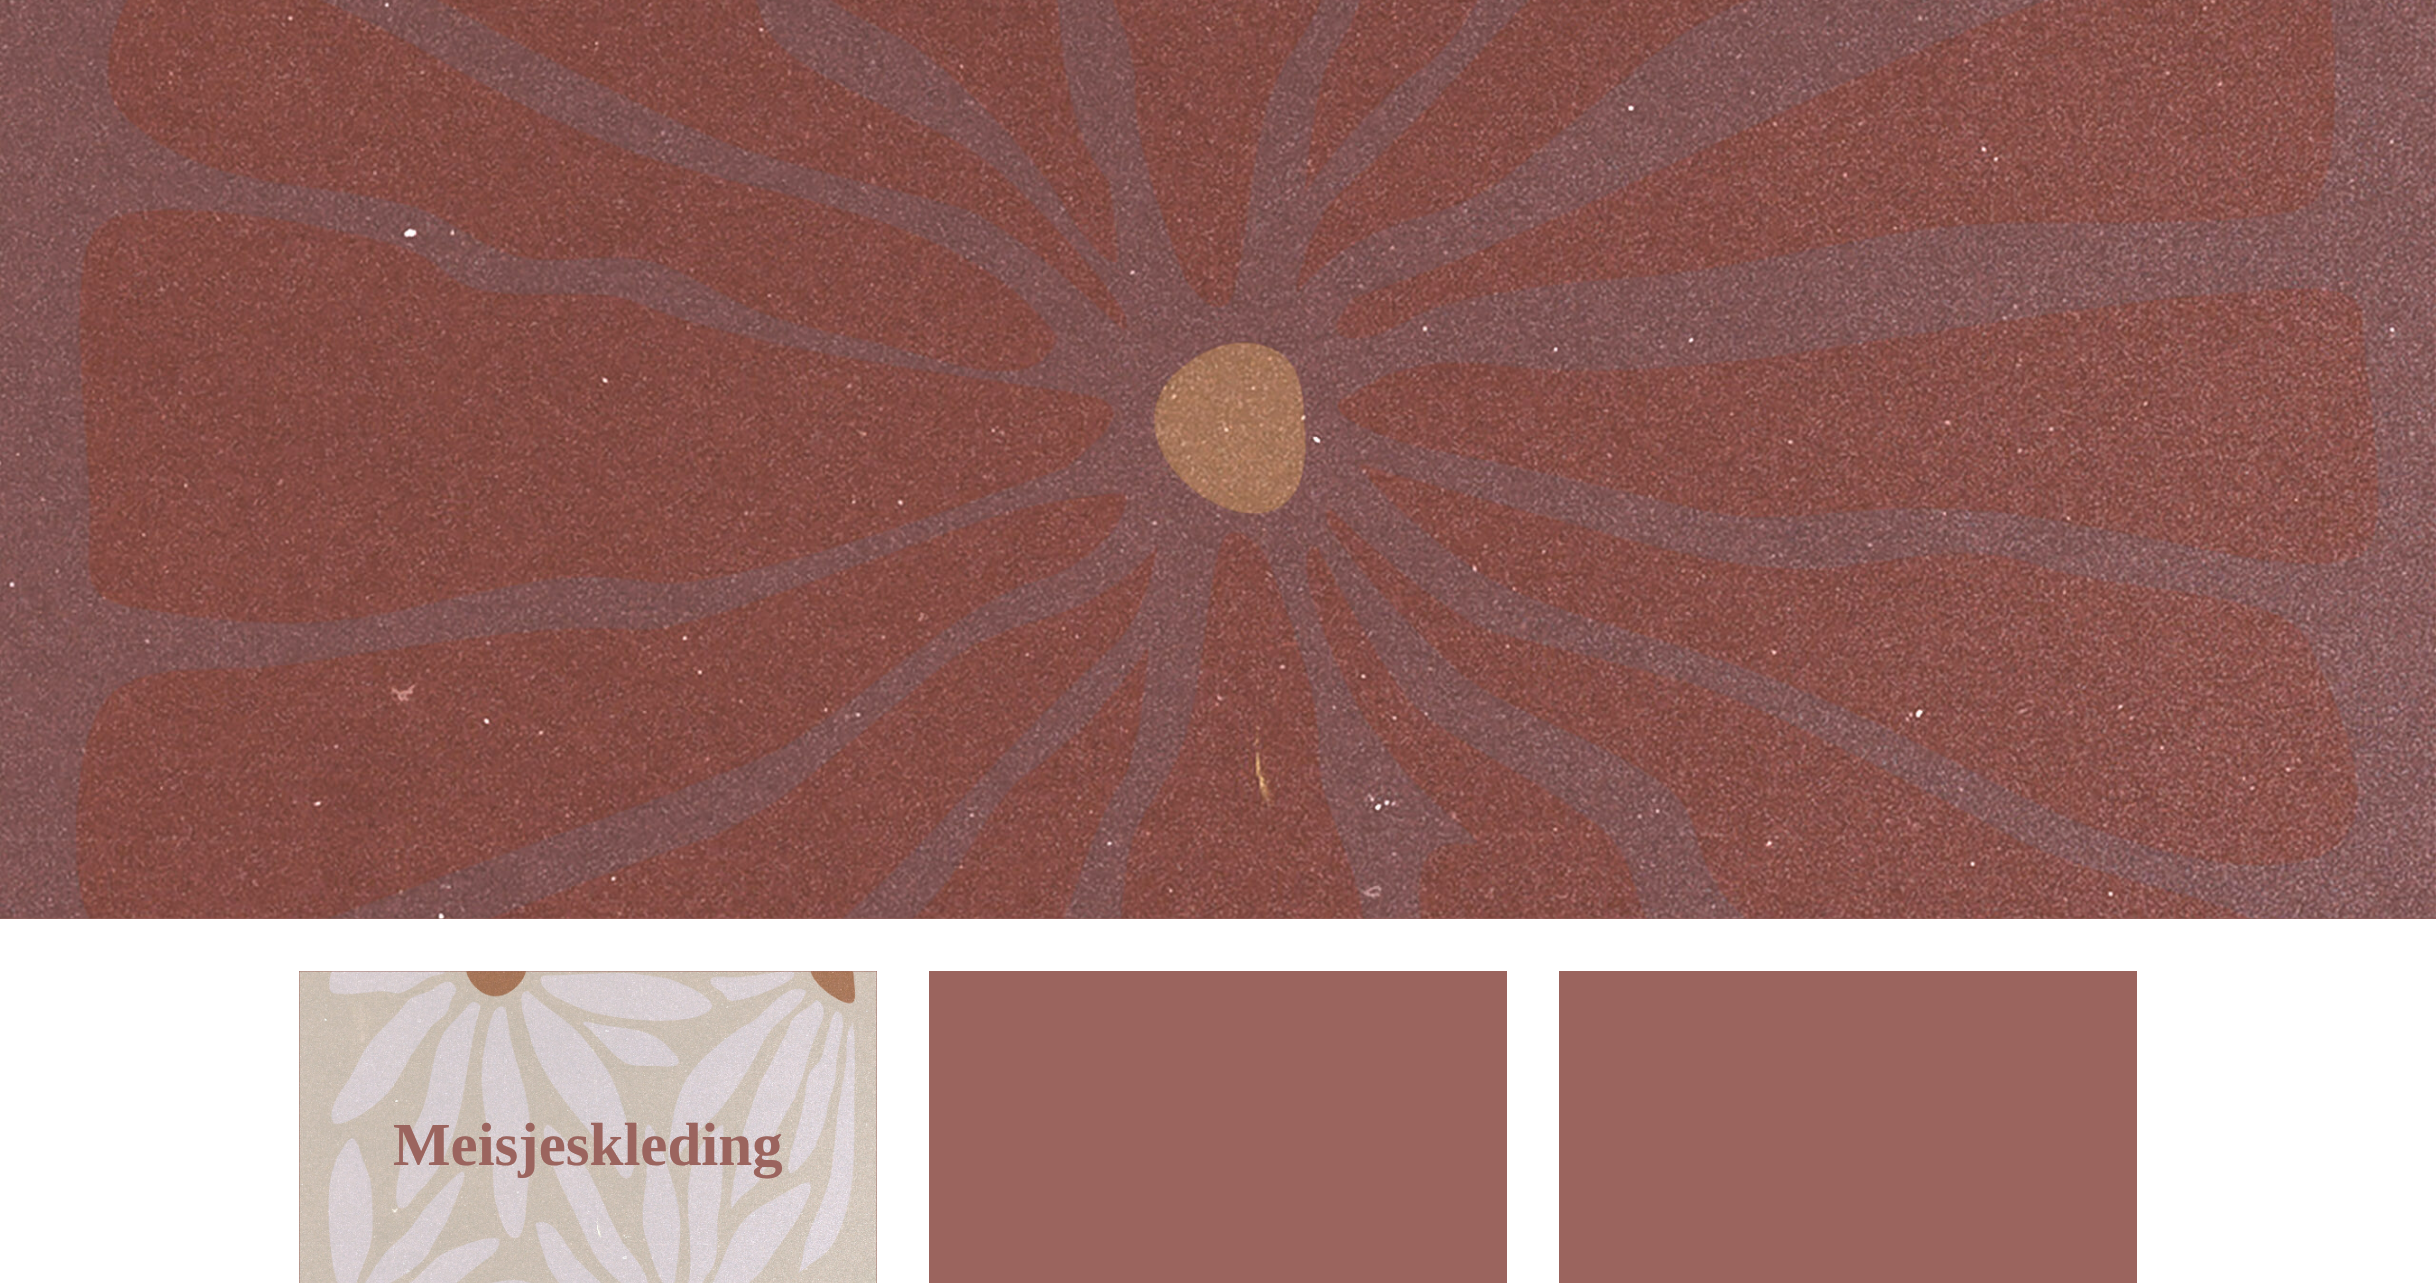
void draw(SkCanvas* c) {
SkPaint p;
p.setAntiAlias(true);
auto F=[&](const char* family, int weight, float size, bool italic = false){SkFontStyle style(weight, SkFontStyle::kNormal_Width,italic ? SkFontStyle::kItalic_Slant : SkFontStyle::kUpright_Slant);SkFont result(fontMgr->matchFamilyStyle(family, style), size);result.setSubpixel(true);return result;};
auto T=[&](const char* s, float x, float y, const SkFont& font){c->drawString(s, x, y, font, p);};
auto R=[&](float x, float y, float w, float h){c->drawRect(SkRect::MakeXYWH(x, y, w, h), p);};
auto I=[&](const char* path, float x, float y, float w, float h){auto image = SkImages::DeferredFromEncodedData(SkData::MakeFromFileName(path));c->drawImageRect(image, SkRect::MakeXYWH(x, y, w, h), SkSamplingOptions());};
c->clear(0xffffffff);
p.setColor(0xff9b645e);
R(0,918,2436,1);
I("1.png",0,0,2436,919);
R(299,971,578,312);
I("2.png",299,971,578,312);
auto f1 = F("Liberation Serif",700,61);
T("Meisjeskleding",393,1165,f1);
R(929,971,578,312);
R(1559,971,578,312);
}
